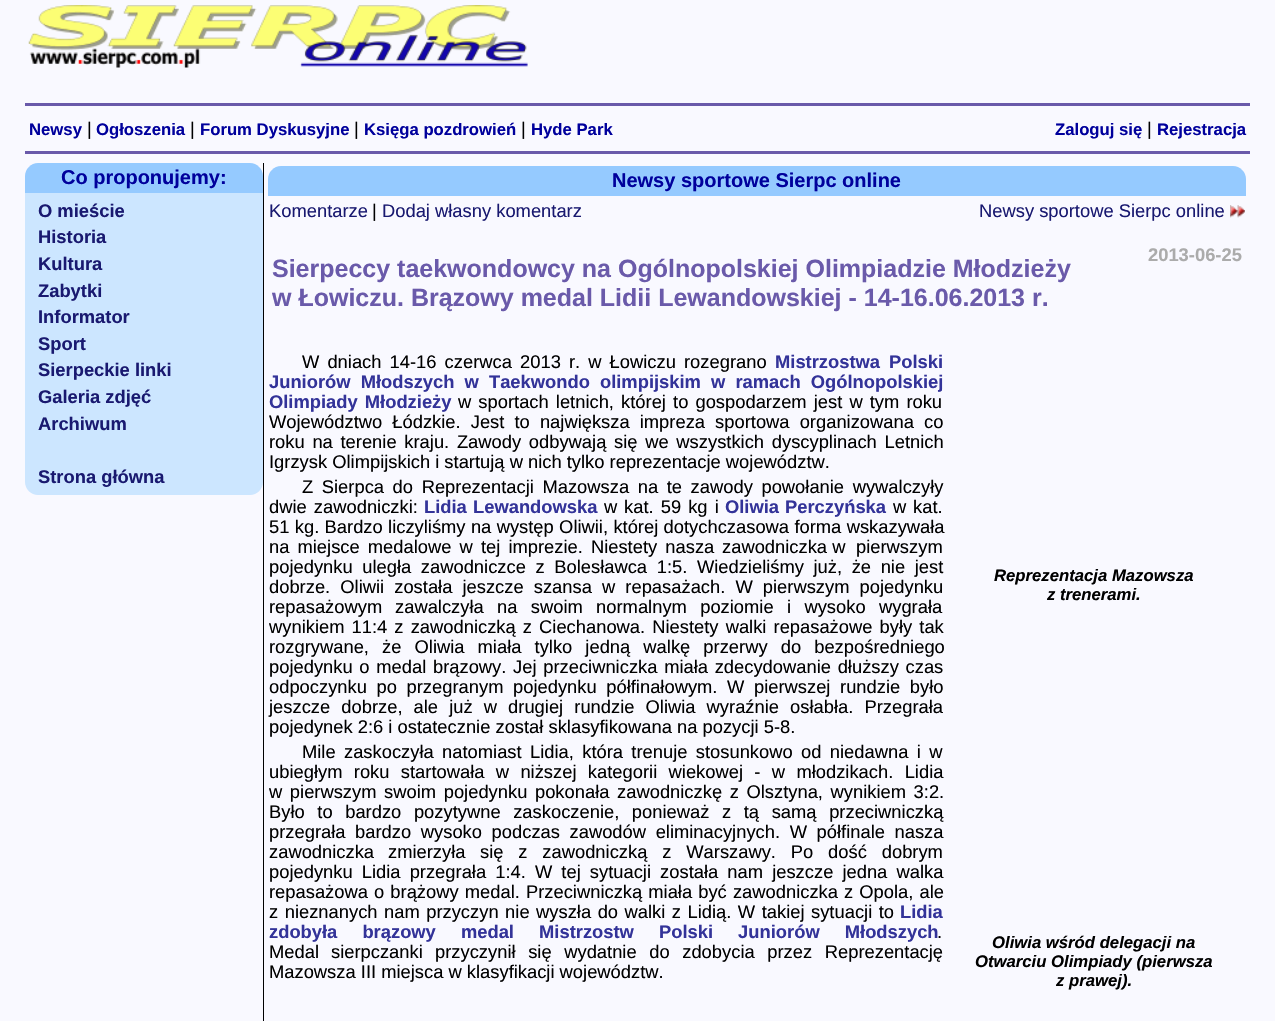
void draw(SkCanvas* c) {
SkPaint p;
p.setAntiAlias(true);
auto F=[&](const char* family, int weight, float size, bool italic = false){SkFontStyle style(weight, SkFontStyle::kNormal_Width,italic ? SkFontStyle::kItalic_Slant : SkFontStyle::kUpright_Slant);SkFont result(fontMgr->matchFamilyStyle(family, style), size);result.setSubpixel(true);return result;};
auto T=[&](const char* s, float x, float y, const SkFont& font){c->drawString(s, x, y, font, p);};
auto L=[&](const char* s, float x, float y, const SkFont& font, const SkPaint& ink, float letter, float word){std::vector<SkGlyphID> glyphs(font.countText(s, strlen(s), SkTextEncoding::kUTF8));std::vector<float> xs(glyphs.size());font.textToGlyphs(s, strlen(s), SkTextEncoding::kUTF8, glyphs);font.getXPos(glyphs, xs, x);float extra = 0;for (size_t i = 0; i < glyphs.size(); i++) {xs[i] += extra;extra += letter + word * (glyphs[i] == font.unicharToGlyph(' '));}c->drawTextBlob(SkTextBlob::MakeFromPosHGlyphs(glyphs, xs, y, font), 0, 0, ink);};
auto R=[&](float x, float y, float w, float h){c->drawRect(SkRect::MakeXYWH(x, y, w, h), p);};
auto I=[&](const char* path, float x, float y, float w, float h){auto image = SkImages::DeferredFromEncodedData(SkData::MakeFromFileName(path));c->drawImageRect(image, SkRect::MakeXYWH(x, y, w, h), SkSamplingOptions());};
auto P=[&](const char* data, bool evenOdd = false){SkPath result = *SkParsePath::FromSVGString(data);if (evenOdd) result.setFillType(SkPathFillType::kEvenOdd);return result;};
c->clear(0xfff9f9ff);
I("1.png",28,5,500,63);
p.setColor(0xff6a5aaa);
R(25,103,1225,3);
auto f1 = F("Liberation Sans",700,16.7);
p.setColor(0xff00009c);
T("Newsy",29,135,f1);
auto f2 = F("Liberation Sans",400,18.35);
p.setColor(0xff000000);
T("|",87,135,f2);
p.setColor(0xff00009c);
T("Ogłoszenia",96,135,f1);
p.setColor(0xff000000);
T("|",190,135,f2);
p.setColor(0xff00009c);
T("Forum Dyskusyjne",200,135,f1);
p.setColor(0xff000000);
T("|",354,135,f2);
p.setColor(0xff00009c);
T("Księga pozdrowień",364,135,f1);
p.setColor(0xff000000);
T("|",521,135,f2);
p.setColor(0xff00009c);
T("Hyde Park",531,135,f1);
T("Zaloguj się",1055,135,f1);
p.setColor(0xff000000);
T("|",1147,135,f2);
p.setColor(0xff00009c);
T("Rejestracja",1157,135,f1);
p.setColor(0xff6a5aaa);
R(25,151,1225,3);
p.setColor(0xff95caff);
c->drawPath(P("M38 163h212c7 0 13 6 13 13v17h-238v-17c0-7 6-13 13-13z"),p);
auto f3 = F("Liberation Sans",700,20);
p.setColor(0xff00009c);
T("Co proponujemy:",61,184,f3);
p.setColor(0xffcce6ff);
c->drawPath(P("M25 193h238v289c0 7-6 13-13 13h-212c-7 0-13-6-13-13z"),p);
auto f4 = F("Liberation Sans",700,18.35);
p.setColor(0xff191970);
T("O mieście",38,217,f4);
T("Historia",38,243,f4);
T("Kultura",38,270,f4);
T("Zabytki",38,297,f4);
T("Informator",38,323,f4);
T("Sport",38,350,f4);
T("Sierpeckie linki",38,376,f4);
T("Galeria zdjęć",38,403,f4);
T("Archiwum",38,430,f4);
T("Strona główna",38,483,f4);
p.setColor(0xff000000);
R(263,163,1,858);
p.setColor(0xff95caff);
c->drawPath(P("M281 166h952c7 0 13 6 13 13v17h-978v-17c0-7 6-13 13-13z"),p);
p.setColor(0xff00009c);
T("Newsy sportowe Sierpc online",612,187,f3);
p.setColor(0xff191970);
T("Komentarze",269,217,f2);
p.setColor(0xff000000);
T("|",372,217,f2);
p.setColor(0xff191970);
T("Dodaj własny komentarz",382,217,f2);
T("Newsy sportowe Sierpc online",979,217,f2);
I("2.png",1230,205,15,13);
p.setColor(0xffababab);
T("2013-06-25",1148,261,f4);
auto f5 = F("Liberation Sans",700,25);
p.setColor(0xff6a5aaa);
T("Sierpeccy taekwondowcy na Ogólnopolskiej Olimpiadzie Młodzieży",272,277,f5);
T("w Łowiczu. Brązowy medal Lidii Lewandowskiej - 14-16.06.2013 r.",272,306,f5);
p.setColor(0xff000000);
L("W dniach 14-16 czerwca 2013 r. w Łowiczu rozegrano",302,368,f2,p,0,3);
p.setColor(0xff333399);
T("Mistrzostwa",775,368,f4);
T("Polski",889,368,f4);
L("Juniorów Młodszych w Taekwondo olimpijskim w ramach Ogólnopolskiej",269,388,f4,p,0,5);
L("Olimpiady Młodzieży",269,408,f4,p,0,2);
p.setColor(0xff000000);
L("w sportach letnich, której to gospodarzem jest w tym roku",458,408,f2,p,0,2);
L("Województwo Łódzkie. Jest to największa impreza sportowa organizowana co",269,428,f2,p,0,5);
L("roku na terenie kraju. Zawody odbywają się we wszystkich dyscyplinach Letnich",269,448,f2,p,0,2.6);
T("Igrzysk Olimpijskich i startują w nich tylko reprezentacje województw.",269,468,f2);
L("Z Sierpca do Reprezentacji Mazowsza na te zawody powołanie wywalczyły",302,493,f2,p,0,3.5);
L("dwie zawodniczki:",269,513,f2,p,0,2);
p.setColor(0xff333399);
T("Lidia",424,513,f4);
T("Lewandowska",473,513,f4);
p.setColor(0xff000000);
T("w",604,513,f2);
L("kat. 59 kg i",624,513,f2,p,0,2);
p.setColor(0xff333399);
T("Oliwia",725,513,f4);
T("Perczyńska",785,513,f4);
p.setColor(0xff000000);
T("w",893,513,f2);
T("kat.",913,513,f2);
L("51 kg. Bardzo liczyliśmy na występ Oliwii, której dotychczasowa forma wskazywała",269,533,f2,p,0,.25);
L("na miejsce medalowe w tej imprezie. Niestety nasza",269,553,f2,p,0,3);
T("zawodniczka w",722,553,f2);
T("pierwszym",856,553,f2);
L("pojedynku uległa zawodniczce z Bolesławca 1:5. Wiedzieliśmy już, że nie jest",269,573,f2,p,0,4.5);
L("dobrze. Oliwii została jeszcze szansa w repasażach. W pierwszym pojedynku",269,593,f2,p,0,5);
T("repasażowym",269,613,f2);
T("zawalczyła",395,613,f2);
L("na swoim normalnym poziomie i wysoko wygrała",497,613,f2,p,0,8.25);
L("wynikiem 11:4 z zawodniczką z Ciechanowa. Niestety walki repasażowe były tak",269,633,f2,p,0,2);
L("rozgrywane, że Oliwia miała tylko jedną walkę przerwy do bezpośredniego",269,653,f2,p,0,8);
L("pojedynku o medal brązowy. Jej przeciwniczka miała zdecydowanie dłuższy czas",269,673,f2,p,0,1.6);
L("odpoczynku po przegranym pojedynku półfinałowym. W pierwszej rundzie było",269,693,f2,p,0,4.5);
L("jeszcze dobrze, ale już w drugiej rundzie Oliwia wyraźnie osłabła. Przegrała",269,713,f2,p,0,6);
T("pojedynek 2:6 i ostatecznie został sklasyfikowana na pozycji 5-8.",269,733,f2);
auto f6 = F("Liberation Sans",700,16.7,true);
T("Reprezentacja Mazowsza",994,581,f6);
T("z trenerami.",1047,600,f6);
T("Oliwia wśród delegacji na",992,948,f6);
T("Otwarciu Olimpiady (pierwsza",975,967,f6);
T("z prawej).",1056,986,f6);
L("Mile zaskoczyła natomiast Lidia, która trenuje stosunkowo od niedawna i w",302,758,f2,p,0,3.25);
L("ubiegłym roku startowała w niższej kategorii wiekowej - w młodzikach. Lidia",269,778,f2,p,0,6.25);
L("w pierwszym swoim pojedynku pokonała zawodniczkę z Olsztyna, wynikiem 3:2.",269,798,f2,p,0,2.5);
L("Było to bardzo pozytywne zaskoczenie, ponieważ z tą samą przeciwniczką",269,818,f2,p,0,7.5);
L("przegrała bardzo wysoko podczas zawodów eliminacyjnych. W półfinale nasza",269,838,f2,p,0,4.5);
T("zawodniczka",269,858,f2);
T("zmierzyła",388,858,f2);
L("się z zawodniczką z Warszawy. Po dość dobrym",480,858,f2,p,0,9.75);
L("pojedynku Lidia przegrała 1:4. W tej sytuacji została nam jeszcze jedna walka",269,878,f2,p,0,4);
L("repasażowa o brążowy medal. Przeciwniczką miała być zawodniczka z Opola, ale",269,898,f2,p,0,1);
L("z nieznanych nam przyczyn nie wyszła do walki z Lidią. W takiej sytuacji to",269,918,f2,p,0,1.4);
p.setColor(0xff333399);
T("Lidia",900,918,f4);
L("zdobyła brązowy medal Mistrzostw Polski Juniorów Młodszych",269,938,f4,p,0,20);
p.setColor(0xff000000);
T(".",937,938,f2);
T("Medal",269,958,f2);
T("sierpczanki",331,958,f2);
L("przyczynił się wydatnie do zdobycia przez Reprezentację",435,958,f2,p,0,7.5);
T("Mazowsza III miejsca w klasyfikacji województw.",269,978,f2);
}
